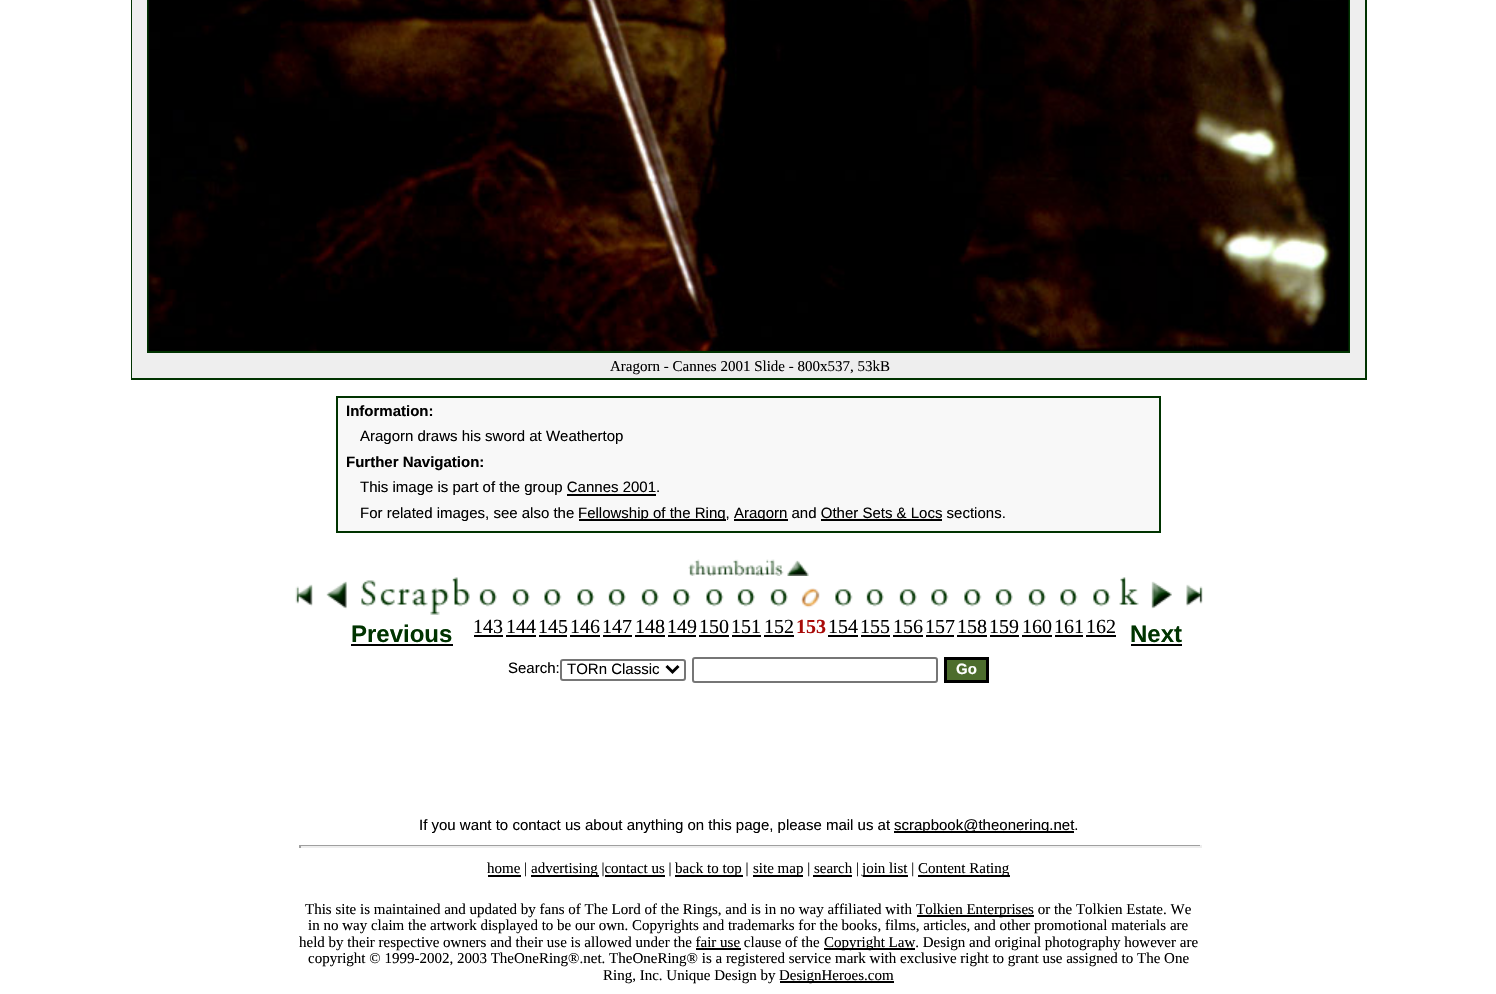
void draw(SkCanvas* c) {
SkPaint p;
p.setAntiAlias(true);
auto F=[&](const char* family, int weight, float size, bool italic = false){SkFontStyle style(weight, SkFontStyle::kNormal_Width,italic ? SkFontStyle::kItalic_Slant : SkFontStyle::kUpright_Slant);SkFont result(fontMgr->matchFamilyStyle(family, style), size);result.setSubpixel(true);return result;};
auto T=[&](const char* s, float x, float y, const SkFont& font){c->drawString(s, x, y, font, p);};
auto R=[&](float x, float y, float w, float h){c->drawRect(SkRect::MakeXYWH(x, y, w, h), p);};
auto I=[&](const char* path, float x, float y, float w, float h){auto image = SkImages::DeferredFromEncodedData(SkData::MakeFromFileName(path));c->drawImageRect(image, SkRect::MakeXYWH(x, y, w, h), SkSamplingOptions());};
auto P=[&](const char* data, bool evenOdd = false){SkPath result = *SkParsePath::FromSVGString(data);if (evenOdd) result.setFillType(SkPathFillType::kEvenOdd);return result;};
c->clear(0xffffffff);
p.setStroke(true);
p.setStrokeWidth(2);
p.setColor(0xff003300);
c->drawRect(SkRect::MakeXYWH(132,-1,1234,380),p);
p.setStroke(false);
p.setColor(0xffeeeeee);
R(132,0,1233,378);
p.setStroke(true);
p.setColor(0xff003300);
c->drawRect(SkRect::MakeXYWH(148,-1,1201,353),p);
I("1.png",148,0,1201,351);
auto f1 = F("Liberation Serif",400,15);
p.setStroke(false);
p.setColor(0xff000000);
T("Aragorn - Cannes 2001 Slide - 800x537, 53kB",610,371,f1);
p.setColor(0xfff8f8f8);
c->drawRect(SkRect::MakeXYWH(337,397,823,135),p);
p.setStroke(true);
p.setColor(0xff003300);
c->drawRect(SkRect::MakeXYWH(337,397,823,135),p);
auto f2 = F("Liberation Sans",700,15);
p.setStroke(false);
p.setColor(0xff000000);
T("Information:",346,416,f2);
auto f3 = F("Liberation Sans",400,15);
T("Aragorn draws his sword at Weathertop",360,441,f3);
T("Further Navigation:",346,467,f2);
T("This image is part of the group Cannes 2001.",360,492,f3);
R(567,494,89,2);
T("For related images, see also the",360,518,f3);
R(579,519,147,2);
T("Fellowship of the Ring,",578,518,f3);
R(734,519,54,2);
T("Aragorn and Other Sets & Locs sections.",734,518,f3);
R(821,519,121,2);
I("2.png",688,559,121,17);
I("3.png",295,584,18,23);
I("4.png",326,577,144,38);
auto f4 = F("Liberation Sans",700,24);
p.setColor(0xff003300);
T("Previous",351,642,f4);
p.setColor(0xff000000);
R(351,644,102,2);
I("5.png",479,589,18,18);
auto f5 = F("Liberation Serif",400,20);
T("143",473,633,f5);
R(474,635,29,2);
I("6.png",512,589,18,18);
T("144",506,633,f5);
R(506,635,30,2);
I("7.png",544,589,18,18);
T("145",538,633,f5);
R(539,635,28,2);
I("7.png",577,589,18,18);
T("146",570,633,f5);
R(570,635,30,2);
I("6.png",608,589,18,18);
T("147",602,633,f5);
R(603,635,29,2);
I("6.png",641,589,18,18);
T("148",635,633,f5);
R(635,635,30,2);
I("7.png",673,589,18,18);
T("149",667,633,f5);
R(668,635,28,2);
I("7.png",706,589,18,18);
T("150",699,633,f5);
R(699,635,30,2);
I("5.png",737,589,18,18);
T("151",731,633,f5);
R(732,635,29,2);
I("6.png",770,589,18,18);
T("152",764,633,f5);
R(764,635,30,2);
I("8.png",801,588,19,20);
auto f6 = F("Liberation Serif",700,20);
p.setColor(0xffa90a08);
T("153",796,633,f6);
I("9.png",835,589,18,18);
p.setColor(0xff000000);
T("154",828,633,f5);
R(828,635,30,2);
I("6.png",866,589,18,18);
T("155",860,633,f5);
R(861,635,29,2);
I("6.png",899,589,18,18);
T("156",893,633,f5);
R(893,635,30,2);
I("9.png",931,589,18,18);
T("157",925,633,f5);
R(926,635,28,2);
I("9.png",964,589,18,18);
T("158",957,633,f5);
R(957,635,30,2);
I("6.png",995,589,18,18);
T("159",989,633,f5);
R(990,635,29,2);
I("10.png",1028,589,18,18);
T("160",1022,633,f5);
R(1022,635,30,2);
I("7.png",1060,589,18,18);
T("161",1054,633,f5);
R(1055,635,28,2);
I("9.png",1093,589,18,18);
T("162",1086,633,f5);
R(1086,635,30,2);
I("11.png",1119,577,53,32);
I("12.png",1186,584,17,23);
p.setColor(0xff003300);
T("Next",1130,642,f4);
p.setColor(0xff000000);
R(1131,644,51,2);
T("Search:",508,673,f3);
p.setStroke(true);
p.setColor(0xff767676);
c->drawRoundRect(SkRect::MakeXYWH(561,660,124,20),2,2,p);
p.setStrokeWidth(3);
p.setColor(0xff000000);
c->drawPath(P("M666.5 666l6 6l6-6"),p);
p.setStroke(false);
T("TORn Classic",567,674,f3);
p.setStroke(true);
p.setStrokeWidth(2);
p.setColor(0xff767676);
c->drawRoundRect(SkRect::MakeXYWH(693,658,244,24),2,2,p);
p.setStroke(false);
p.setColor(0xff4d6d2d);
c->drawRect(SkRect::MakeXYWH(945.5,658.5,42,23),p);
p.setStroke(true);
p.setStrokeWidth(3);
p.setColor(0xff000000);
c->drawRect(SkRect::MakeXYWH(945.5,658.5,42,23),p);
p.setStroke(false);
p.setColor(0xffffffff);
T("Go",956,674,f2);
p.setColor(0xff000000);
T("If you want to contact us about anything on this page, please mail us at",419,830,f3);
R(894,831,180,2);
T("scrapbook@theonering.net.",894,830,f3);
p.setColor(0xff9f9f9f);
R(299,845,903,1);
p.setColor(0xffeeeeee);
R(1200,845,2,3);
R(299,846,903,2);
p.setColor(0xff9f9f9f);
R(299,845,2,3);
p.setColor(0xff000000);
R(488,875,33,2);
T("home |",487,873,f1);
R(531,875,68,2);
T("advertising |contact us |",531,873,f1);
R(605,875,60,2);
R(675,875,68,2);
T("back to top |",675,873,f1);
R(753,875,50,2);
T("site map | search |",753,873,f1);
R(813,875,39,2);
R(863,875,45,2);
T("join list |",862,873,f1);
R(918,875,92,2);
T("Content Rating",918,873,f1);
T("This site is maintained and updated by fans of The Lord of the Rings, and is in no way affiliated with",305,914,f1);
R(917,915,117,2);
T("Tolkien Enterprises or the Tolkien Estate. We",916,914,f1);
T("in no way claim the artwork displayed to be our own. Copyrights and trademarks for the books, films, articles, and other promotional materials are",308,930,f1);
T("held by their respective owners and their use is allowed under the fair use clause of the",299,947,f1);
R(696,948,45,2);
R(824,948,91,2);
T("Copyright Law. Design and original photography however are",824,947,f1);
T("copyright © 1999-2002, 2003 TheOneRing®.net. TheOneRing® is a registered service mark with exclusive right to grant use assigned to The One",308,963,f1);
T("Ring, Inc. Unique Design by",603,980,f1);
R(780,981,114,2);
T("DesignHeroes.com",779,980,f1);
}
